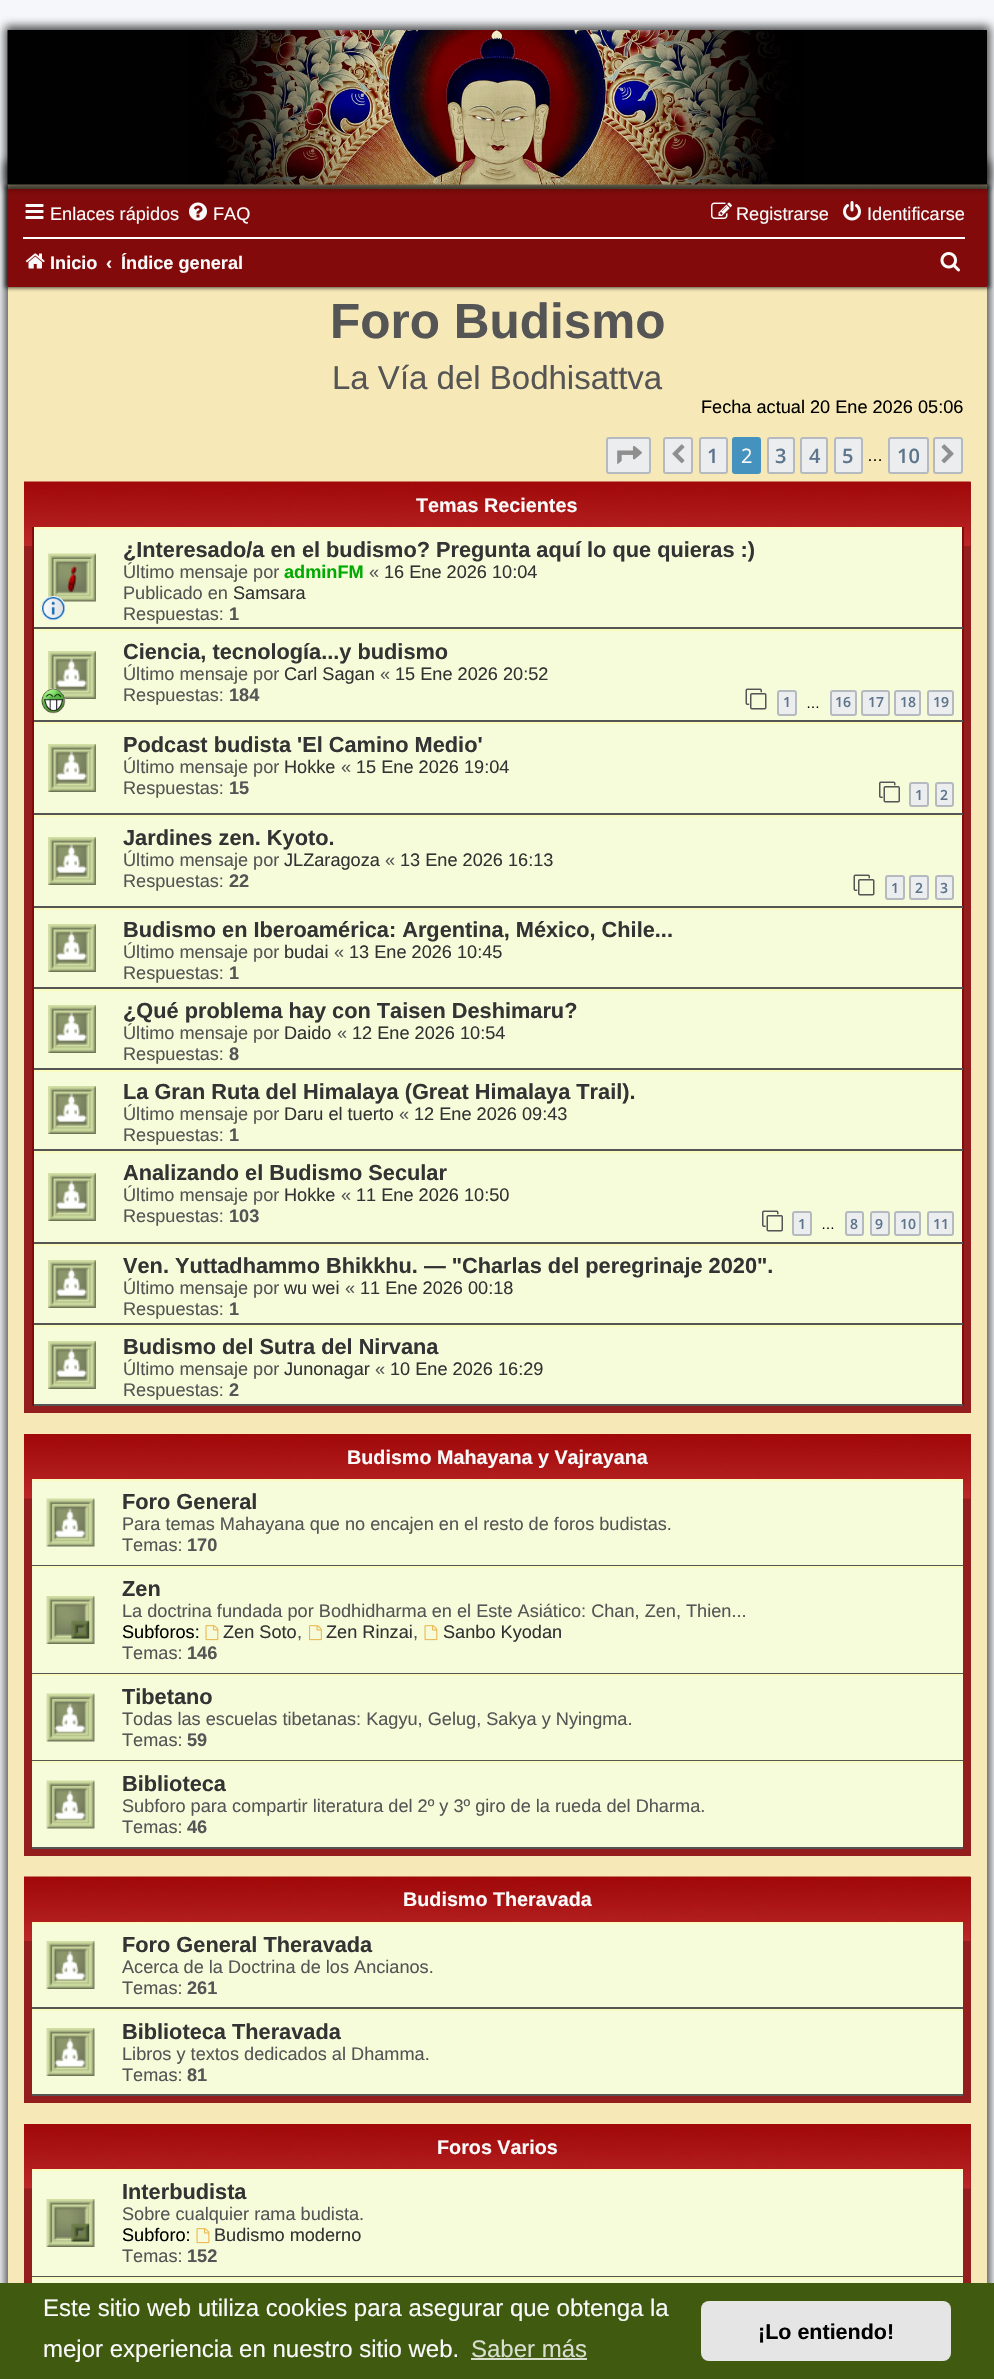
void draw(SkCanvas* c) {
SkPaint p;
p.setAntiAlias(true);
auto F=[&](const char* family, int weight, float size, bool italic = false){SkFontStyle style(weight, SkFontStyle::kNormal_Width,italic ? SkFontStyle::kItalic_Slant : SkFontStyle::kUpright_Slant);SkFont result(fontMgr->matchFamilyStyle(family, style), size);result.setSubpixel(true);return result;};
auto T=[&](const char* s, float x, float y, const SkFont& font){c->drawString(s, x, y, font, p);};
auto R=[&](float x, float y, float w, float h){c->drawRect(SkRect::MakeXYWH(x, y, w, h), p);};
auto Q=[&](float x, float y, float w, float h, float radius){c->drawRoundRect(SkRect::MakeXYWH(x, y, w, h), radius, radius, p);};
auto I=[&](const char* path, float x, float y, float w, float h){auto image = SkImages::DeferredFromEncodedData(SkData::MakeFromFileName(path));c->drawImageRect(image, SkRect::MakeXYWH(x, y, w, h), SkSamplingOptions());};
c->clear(0xfff5f7fa);
p.setColor(0xb3020202);
p.setMaskFilter(SkMaskFilter::MakeBlur(kNormal_SkBlurStyle, 4.5));
c->drawRect(SkRect::MakeXYWH(5,161,985,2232),p);
p.setMaskFilter(nullptr);
p.setColor(0xfff6e8b7);
R(8,184,979,2099);
p.setColor(0xb3020202);
p.setMaskFilter(SkMaskFilter::MakeBlur(kNormal_SkBlurStyle, 2));
c->drawRect(SkRect::MakeXYWH(5,185,985,103),p);
p.setMaskFilter(nullptr);
p.setColor(0xff820a0a);
R(8,189,979,98);
p.setColor(0xb3020202);
p.setMaskFilter(SkMaskFilter::MakeBlur(kNormal_SkBlurStyle, 4.5));
c->drawRect(SkRect::MakeXYWH(5,26,985,160),p);
p.setMaskFilter(nullptr);
I("1.png",7,30,980,155);
I("2.png",25,204,19,15);
auto f1 = F("Liberation Sans",400,18.15);
p.setColor(0xfffafafa);
T("Enlaces rápidos",50,220,f1);
I("3.png",189,202,18,19);
T("FAQ",213,220,f1);
I("4.png",711,202,21,17);
T("Registrarse",736,220,f1);
I("5.png",843,201,18,20);
T("Identificarse",867,220,f1);
p.setColor(0xffffffff);
R(23,237,942,2);
I("6.png",25,253,20,16);
auto f2 = F("Liberation Sans",700,18.15);
p.setColor(0xfffafafa);
T("Inicio",50,269,f2);
T("‹",106,269,f2);
T("Índice general",121,269,f2);
I("7.png",940,252,20,20);
auto f3 = F("Liberation Sans",700,49.5);
p.setColor(0xff555555);
T("Foro Budismo",330,338,f3);
auto f4 = F("Liberation Sans",400,33);
T("La Vía del Bodhisattva",332,389,f4);
p.setColor(0xff000000);
T("Fecha actual 20 Ene 2026 05:06",701,413,f1);
p.setColor(0xffecedee);
c->drawRoundRect(SkRect::MakeXYWH(607,438,43,35),2,2,p);
p.setStroke(true);
p.setStrokeWidth(2);
p.setColor(0xffb4bac0);
c->drawRoundRect(SkRect::MakeXYWH(607,438,43,35),2,2,p);
I("8.png",617,446,25,18);
p.setStroke(false);
p.setColor(0xffecedee);
c->drawRoundRect(SkRect::MakeXYWH(664,438,28,35),2,2,p);
p.setStroke(true);
p.setColor(0xffb4bac0);
c->drawRoundRect(SkRect::MakeXYWH(664,438,28,35),2,2,p);
I("9.png",672,444,13,20);
p.setStroke(false);
p.setColor(0xffecedee);
c->drawRoundRect(SkRect::MakeXYWH(700,438,27,35),2,2,p);
p.setStroke(true);
p.setColor(0xffb4bac0);
c->drawRoundRect(SkRect::MakeXYWH(700,438,27,35),2,2,p);
auto f5 = F("Open Sans",600,20);
p.setStroke(false);
p.setColor(0xff5c758c);
T("1",707,463,f5);
p.setColor(0xff4692bf);
c->drawRoundRect(SkRect::MakeXYWH(733,438,27,35),2,2,p);
p.setStroke(true);
c->drawRoundRect(SkRect::MakeXYWH(733,438,27,35),2,2,p);
auto f6 = F("Open Sans",400,20);
p.setStroke(false);
p.setColor(0xfffafafa);
T("2",741,463,f6);
p.setColor(0xffecedee);
c->drawRoundRect(SkRect::MakeXYWH(768,438,26,35),2,2,p);
p.setStroke(true);
p.setColor(0xffb4bac0);
c->drawRoundRect(SkRect::MakeXYWH(768,438,26,35),2,2,p);
p.setStroke(false);
p.setColor(0xff5c758c);
T("3",775,463,f5);
p.setColor(0xffecedee);
c->drawRoundRect(SkRect::MakeXYWH(801,438,26,35),2,2,p);
p.setStroke(true);
p.setColor(0xffb4bac0);
c->drawRoundRect(SkRect::MakeXYWH(801,438,26,35),2,2,p);
p.setStroke(false);
p.setColor(0xff5c758c);
T("4",809,463,f5);
p.setColor(0xffecedee);
c->drawRoundRect(SkRect::MakeXYWH(835,438,27,35),2,2,p);
p.setStroke(true);
p.setColor(0xffb4bac0);
c->drawRoundRect(SkRect::MakeXYWH(835,438,27,35),2,2,p);
p.setStroke(false);
p.setColor(0xff5c758c);
T("5",842,463,f5);
auto f7 = F("Liberation Sans",400,16);
p.setColor(0xff000000);
T("…",867,461,f7);
p.setColor(0xffecedee);
c->drawRoundRect(SkRect::MakeXYWH(889,438,39,35),2,2,p);
p.setStroke(true);
p.setColor(0xffb4bac0);
c->drawRoundRect(SkRect::MakeXYWH(889,438,39,35),2,2,p);
p.setStroke(false);
p.setColor(0xff5c758c);
T("10",897,463,f5);
p.setColor(0xffecedee);
c->drawRoundRect(SkRect::MakeXYWH(934,438,28,35),2,2,p);
p.setStroke(true);
p.setColor(0xffb4bac0);
c->drawRoundRect(SkRect::MakeXYWH(934,438,28,35),2,2,p);
I("10.png",941,444,13,20);
p.setStroke(false);
p.setColor(0xff941e1e);
R(24,482,947,931);
I("11.png",24,481,947,65);
auto f8 = F("Liberation Sans",700,19.75);
p.setColor(0xfffafafa);
T("Temas Recientes",416,512,f8);
p.setColor(0xfff6fbda);
R(34,529,928,98);
p.setColor(0xfffafbbf);
R(32,527,931,2);
p.setColor(0xff820a0a);
R(962,527,2,102);
p.setColor(0xff555555);
R(32,627,931,2);
p.setColor(0xff820a0a);
R(32,527,2,102);
I("12.png",48,553,48,49);
I("13.png",41,596,25,25);
auto f9 = F("Liberation Sans",700,21.75);
p.setColor(0xff333333);
T("¿Interesado/a en el budismo? Pregunta aquí lo que quieras :)",123,557,f9);
p.setColor(0xff555555);
T("Último mensaje por",123,578,f1);
p.setColor(0xff00aa00);
T("adminFM",284,578,f2);
p.setColor(0xff555555);
T("«",369,578,f1);
p.setColor(0xff333333);
T("16 Ene 2026 10:04",384,578,f1);
p.setColor(0xff555555);
T("Publicado en",123,599,f1);
p.setColor(0xff333333);
T("Samsara",233,599,f1);
p.setColor(0xff555555);
T("Respuestas:",123,620,f1);
T("1",229,620,f2);
p.setColor(0xfff6fbda);
R(34,631,928,89);
p.setColor(0xfffafbbf);
R(32,629,931,2);
p.setColor(0xff820a0a);
R(962,629,2,93);
p.setColor(0xff555555);
R(32,720,931,2);
p.setColor(0xff820a0a);
R(32,629,2,93);
I("14.png",48,651,48,48);
I("15.png",41,688,25,26);
p.setColor(0xff333333);
T("Ciencia, tecnología...y budismo",123,659,f9);
p.setColor(0xff555555);
T("Último mensaje por",123,680,f1);
p.setColor(0xff333333);
T("Carl Sagan",284,680,f1);
p.setColor(0xff555555);
T("«",380,680,f1);
p.setColor(0xff333333);
T("15 Ene 2026 20:52",395,680,f1);
p.setColor(0xff555555);
T("Respuestas:",123,701,f1);
T("184",229,701,f2);
I("16.png",745,688,22,22);
p.setColor(0xffecedee);
c->drawRoundRect(SkRect::MakeXYWH(778,691,18,24),2,2,p);
p.setStroke(true);
p.setColor(0xffb4bac0);
c->drawRoundRect(SkRect::MakeXYWH(778,691,18,24),2,2,p);
auto f10 = F("Open Sans",600,14);
p.setStroke(false);
p.setColor(0xff5c758c);
T("1",783,707,f10);
auto f11 = F("Liberation Sans",400,14);
p.setColor(0xff000000);
T("…",806,708,f11);
p.setColor(0xffecedee);
c->drawRoundRect(SkRect::MakeXYWH(831,691,25,24),2,2,p);
p.setStroke(true);
p.setColor(0xffb4bac0);
c->drawRoundRect(SkRect::MakeXYWH(831,691,25,24),2,2,p);
p.setStroke(false);
p.setColor(0xff5c758c);
T("16",835,707,f10);
p.setColor(0xffecedee);
c->drawRoundRect(SkRect::MakeXYWH(862,691,27,24),2,2,p);
p.setStroke(true);
p.setColor(0xffb4bac0);
c->drawRoundRect(SkRect::MakeXYWH(862,691,27,24),2,2,p);
p.setStroke(false);
p.setColor(0xff5c758c);
T("17",868,707,f10);
p.setColor(0xffecedee);
c->drawRoundRect(SkRect::MakeXYWH(895,691,25,24),2,2,p);
p.setStroke(true);
p.setColor(0xffb4bac0);
c->drawRoundRect(SkRect::MakeXYWH(895,691,25,24),2,2,p);
p.setStroke(false);
p.setColor(0xff5c758c);
T("18",900,707,f10);
p.setColor(0xffecedee);
c->drawRoundRect(SkRect::MakeXYWH(928,691,25,24),2,2,p);
p.setStroke(true);
p.setColor(0xffb4bac0);
c->drawRoundRect(SkRect::MakeXYWH(928,691,25,24),2,2,p);
p.setStroke(false);
p.setColor(0xff5c758c);
T("19",933,707,f10);
p.setColor(0xfff6fbda);
R(34,724,928,89);
p.setColor(0xfffafbbf);
R(32,722,931,2);
p.setColor(0xff820a0a);
R(962,722,2,93);
p.setColor(0xff555555);
R(32,813,931,2);
p.setColor(0xff820a0a);
R(32,722,2,93);
I("14.png",48,744,48,48);
p.setColor(0xff333333);
T("Podcast budista 'El Camino Medio'",123,752,f9);
p.setColor(0xff555555);
T("Último mensaje por",123,773,f1);
p.setColor(0xff333333);
T("Hokke",284,773,f1);
p.setColor(0xff555555);
T("«",341,773,f1);
p.setColor(0xff333333);
T("15 Ene 2026 19:04",356,773,f1);
p.setColor(0xff555555);
T("Respuestas:",123,794,f1);
T("15",229,794,f2);
I("17.png",879,781,21,22);
p.setColor(0xffecedee);
c->drawRoundRect(SkRect::MakeXYWH(910,783,18,23),2,2,p);
p.setStroke(true);
p.setColor(0xffb4bac0);
c->drawRoundRect(SkRect::MakeXYWH(910,783,18,23),2,2,p);
p.setStroke(false);
p.setColor(0xff5c758c);
T("1",915,800,f10);
p.setColor(0xffecedee);
c->drawRoundRect(SkRect::MakeXYWH(936,783,17,23),2,2,p);
p.setStroke(true);
p.setColor(0xffb4bac0);
c->drawRoundRect(SkRect::MakeXYWH(936,783,17,23),2,2,p);
p.setStroke(false);
p.setColor(0xff5c758c);
T("2",940,800,f10);
p.setColor(0xfff6fbda);
R(34,817,928,89);
p.setColor(0xfffafbbf);
R(32,815,931,2);
p.setColor(0xff820a0a);
R(962,815,2,93);
p.setColor(0xff555555);
R(32,906,931,2);
p.setColor(0xff820a0a);
R(32,815,2,93);
I("14.png",48,837,48,48);
p.setColor(0xff333333);
T("Jardines zen. Kyoto.",123,845,f9);
p.setColor(0xff555555);
T("Último mensaje por",123,866,f1);
p.setColor(0xff333333);
T("JLZaragoza",284,866,f1);
p.setColor(0xff555555);
T("«",385,866,f1);
p.setColor(0xff333333);
T("13 Ene 2026 16:13",400,866,f1);
p.setColor(0xff555555);
T("Respuestas:",123,887,f1);
T("22",229,887,f2);
I("16.png",853,874,22,22);
p.setColor(0xffecedee);
c->drawRoundRect(SkRect::MakeXYWH(886,876,18,23),2,2,p);
p.setStroke(true);
p.setColor(0xffb4bac0);
c->drawRoundRect(SkRect::MakeXYWH(886,876,18,23),2,2,p);
p.setStroke(false);
p.setColor(0xff5c758c);
T("1",891,893,f10);
p.setColor(0xffecedee);
c->drawRoundRect(SkRect::MakeXYWH(910,876,18,23),2,2,p);
p.setStroke(true);
p.setColor(0xffb4bac0);
c->drawRoundRect(SkRect::MakeXYWH(910,876,18,23),2,2,p);
p.setStroke(false);
p.setColor(0xff5c758c);
T("2",915,893,f10);
p.setColor(0xffecedee);
c->drawRoundRect(SkRect::MakeXYWH(936,876,17,23),2,2,p);
p.setStroke(true);
p.setColor(0xffb4bac0);
c->drawRoundRect(SkRect::MakeXYWH(936,876,17,23),2,2,p);
p.setStroke(false);
p.setColor(0xff5c758c);
T("3",940,893,f10);
p.setColor(0xfff6fbda);
R(34,910,928,77);
p.setColor(0xfffafbbf);
R(32,908,931,2);
p.setColor(0xff820a0a);
R(962,908,2,81);
p.setColor(0xff555555);
R(32,987,931,2);
p.setColor(0xff820a0a);
R(32,908,2,81);
I("14.png",48,924,48,48);
p.setColor(0xff333333);
T("Budismo en Iberoamérica: Argentina, México, Chile...",123,937,f9);
p.setColor(0xff555555);
T("Último mensaje por",123,958,f1);
p.setColor(0xff333333);
T("budai",284,958,f1);
p.setColor(0xff555555);
T("«",334,958,f1);
p.setColor(0xff333333);
T("13 Ene 2026 10:45",349,958,f1);
p.setColor(0xff555555);
T("Respuestas:",123,979,f1);
T("1",229,979,f2);
p.setColor(0xfff6fbda);
R(34,991,928,77);
p.setColor(0xfffafbbf);
R(32,989,931,2);
p.setColor(0xff820a0a);
R(962,989,2,81);
p.setColor(0xff555555);
R(32,1068,931,2);
p.setColor(0xff820a0a);
R(32,989,2,81);
I("14.png",48,1005,48,48);
p.setColor(0xff333333);
T("¿Qué problema hay con Taisen Deshimaru?",123,1018,f9);
p.setColor(0xff555555);
T("Último mensaje por",123,1039,f1);
p.setColor(0xff333333);
T("Daido",284,1039,f1);
p.setColor(0xff555555);
T("«",337,1039,f1);
p.setColor(0xff333333);
T("12 Ene 2026 10:54",352,1039,f1);
p.setColor(0xff555555);
T("Respuestas:",123,1060,f1);
T("8",229,1060,f2);
p.setColor(0xfff6fbda);
R(34,1072,928,77);
p.setColor(0xfffafbbf);
R(32,1070,931,2);
p.setColor(0xff820a0a);
R(962,1070,2,81);
p.setColor(0xff555555);
R(32,1149,931,2);
p.setColor(0xff820a0a);
R(32,1070,2,81);
I("14.png",48,1086,48,48);
p.setColor(0xff333333);
T("La Gran Ruta del Himalaya (Great Himalaya Trail).",123,1099,f9);
p.setColor(0xff555555);
T("Último mensaje por",123,1120,f1);
p.setColor(0xff333333);
T("Daru el tuerto",284,1120,f1);
p.setColor(0xff555555);
T("«",399,1120,f1);
p.setColor(0xff333333);
T("12 Ene 2026 09:43",414,1120,f1);
p.setColor(0xff555555);
T("Respuestas:",123,1141,f1);
T("1",229,1141,f2);
p.setColor(0xfff6fbda);
R(34,1153,928,89);
p.setColor(0xfffafbbf);
R(32,1151,931,2);
p.setColor(0xff820a0a);
R(962,1151,2,93);
p.setColor(0xff555555);
R(32,1242,931,2);
p.setColor(0xff820a0a);
R(32,1151,2,93);
I("14.png",48,1173,48,48);
p.setColor(0xff333333);
T("Analizando el Budismo Secular",123,1180,f9);
p.setColor(0xff555555);
T("Último mensaje por",123,1201,f1);
p.setColor(0xff333333);
T("Hokke",284,1201,f1);
p.setColor(0xff555555);
T("«",341,1201,f1);
p.setColor(0xff333333);
T("11 Ene 2026 10:50",356,1201,f1);
p.setColor(0xff555555);
T("Respuestas:",123,1222,f1);
T("103",229,1222,f2);
I("17.png",762,1210,21,22);
p.setColor(0xffecedee);
c->drawRoundRect(SkRect::MakeXYWH(793,1212,18,23),2,2,p);
p.setStroke(true);
p.setColor(0xffb4bac0);
c->drawRoundRect(SkRect::MakeXYWH(793,1212,18,23),2,2,p);
p.setStroke(false);
p.setColor(0xff5c758c);
T("1",798,1229,f10);
p.setColor(0xff000000);
T("…",821,1229,f11);
p.setColor(0xffecedee);
c->drawRoundRect(SkRect::MakeXYWH(846,1212,17,23),2,2,p);
p.setStroke(true);
p.setColor(0xffb4bac0);
c->drawRoundRect(SkRect::MakeXYWH(846,1212,17,23),2,2,p);
p.setStroke(false);
p.setColor(0xff5c758c);
T("8",850,1229,f10);
p.setColor(0xffecedee);
c->drawRoundRect(SkRect::MakeXYWH(871,1212,18,23),2,2,p);
p.setStroke(true);
p.setColor(0xffb4bac0);
c->drawRoundRect(SkRect::MakeXYWH(871,1212,18,23),2,2,p);
p.setStroke(false);
p.setColor(0xff5c758c);
T("9",875,1229,f10);
p.setColor(0xffecedee);
c->drawRoundRect(SkRect::MakeXYWH(895,1212,25,23),2,2,p);
p.setStroke(true);
p.setColor(0xffb4bac0);
c->drawRoundRect(SkRect::MakeXYWH(895,1212,25,23),2,2,p);
p.setStroke(false);
p.setColor(0xff5c758c);
T("10",900,1229,f10);
p.setColor(0xffecedee);
c->drawRoundRect(SkRect::MakeXYWH(928,1212,25,23),2,2,p);
p.setStroke(true);
p.setColor(0xffb4bac0);
c->drawRoundRect(SkRect::MakeXYWH(928,1212,25,23),2,2,p);
p.setStroke(false);
p.setColor(0xff5c758c);
T("11",933,1229,f10);
p.setColor(0xfff6fbda);
R(34,1246,928,77);
p.setColor(0xfffafbbf);
R(32,1244,931,2);
p.setColor(0xff820a0a);
R(962,1244,2,81);
p.setColor(0xff555555);
R(32,1323,931,2);
p.setColor(0xff820a0a);
R(32,1244,2,81);
I("14.png",48,1260,48,48);
p.setColor(0xff333333);
T("Ven. Yuttadhammo Bhikkhu. — \"Charlas del peregrinaje 2020\".",123,1273,f9);
p.setColor(0xff555555);
T("Último mensaje por",123,1294,f1);
p.setColor(0xff333333);
T("wu wei",284,1294,f1);
p.setColor(0xff555555);
T("«",345,1294,f1);
p.setColor(0xff333333);
T("11 Ene 2026 00:18",360,1294,f1);
p.setColor(0xff555555);
T("Respuestas:",123,1315,f1);
T("1",229,1315,f2);
p.setColor(0xfff6fbda);
R(34,1327,928,77);
p.setColor(0xfffafbbf);
R(32,1325,931,2);
p.setColor(0xff820a0a);
R(962,1325,2,81);
p.setColor(0xff555555);
R(32,1404,931,2);
p.setColor(0xff820a0a);
R(32,1325,2,81);
I("14.png",48,1341,48,48);
p.setColor(0xff333333);
T("Budismo del Sutra del Nirvana",123,1354,f9);
p.setColor(0xff555555);
T("Último mensaje por",123,1375,f1);
p.setColor(0xff333333);
T("Junonagar",284,1375,f1);
p.setColor(0xff555555);
T("«",375,1375,f1);
p.setColor(0xff333333);
T("10 Ene 2026 16:29",390,1375,f1);
p.setColor(0xff555555);
T("Respuestas:",123,1396,f1);
T("2",229,1396,f2);
p.setColor(0xff941e1e);
R(24,1434,947,422);
I("18.png",24,1434,947,65);
p.setColor(0xfffafafa);
T("Budismo Mahayana y Vajrayana",347,1464,f8);
p.setColor(0xfff6fbda);
R(32,1481,931,366);
p.setColor(0xfffafbbf);
R(32,1479,931,2);
p.setColor(0xff555555);
R(32,1565,931,1);
I("19.png",46,1498,49,49);
p.setColor(0xff333333);
T("Foro General",122,1509,f9);
p.setColor(0xff555555);
T("Para temas Mahayana que no encajen en el resto de foros budistas.",122,1530,f1);
T("Temas:",122,1551,f1);
T("170",187,1551,f2);
p.setColor(0xfffafbbf);
R(32,1566,931,2);
p.setColor(0xff555555);
R(32,1673,931,1);
I("20.png",46,1596,49,48);
p.setColor(0xff333333);
T("Zen",122,1596,f9);
p.setColor(0xff555555);
T("La doctrina fundada por Bodhidharma en el Este Asiático: Chan, Zen, Thien...",122,1617,f1);
p.setColor(0xff000000);
T("Subforos:",122,1638,f1);
I("21.png",205,1625,14,16);
p.setColor(0xff333333);
T("Zen Soto",223,1638,f1);
p.setColor(0xff555555);
T(",",297,1638,f1);
I("22.png",309,1625,13,16);
p.setColor(0xff333333);
T("Zen Rinzai",326,1638,f1);
p.setColor(0xff555555);
T(",",413,1638,f1);
I("21.png",424,1625,14,16);
p.setColor(0xff333333);
T("Sanbo Kyodan",443,1638,f1);
p.setColor(0xff555555);
T("Temas:",122,1659,f1);
T("146",187,1659,f2);
p.setColor(0xfffafbbf);
R(32,1674,931,2);
p.setColor(0xff555555);
R(32,1760,931,1);
I("23.png",46,1693,49,49);
p.setColor(0xff333333);
T("Tibetano",122,1704,f9);
p.setColor(0xff555555);
T("Todas las escuelas tibetanas: Kagyu, Gelug, Sakya y Nyingma.",122,1725,f1);
T("Temas:",122,1746,f1);
T("59",187,1746,f2);
p.setColor(0xfffafbbf);
R(32,1761,931,2);
p.setColor(0xff555555);
R(32,1847,931,2);
I("24.png",46,1780,49,49);
p.setColor(0xff333333);
T("Biblioteca",122,1791,f9);
p.setColor(0xff555555);
T("Subforo para compartir literatura del 2º y 3º giro de la rueda del Dharma.",122,1812,f1);
T("Temas:",122,1833,f1);
T("46",187,1833,f2);
p.setColor(0xff941e1e);
R(24,1877,947,226);
I("25.png",24,1876,947,65);
p.setColor(0xfffafafa);
T("Budismo Theravada",403,1906,f8);
p.setColor(0xfff6fbda);
R(32,1924,931,170);
p.setColor(0xfffafbbf);
R(32,1922,931,2);
p.setColor(0xff555555);
R(32,2007,931,2);
I("26.png",46,1941,49,48);
p.setColor(0xff333333);
T("Foro General Theravada",122,1952,f9);
p.setColor(0xff555555);
T("Acerca de la Doctrina de los Ancianos.",122,1973,f1);
T("Temas:",122,1994,f1);
T("261",187,1994,f2);
p.setColor(0xfffafbbf);
R(32,2009,931,2);
p.setColor(0xff555555);
R(32,2094,931,2);
I("26.png",46,2028,49,48);
p.setColor(0xff333333);
T("Biblioteca Theravada",122,2039,f9);
p.setColor(0xff555555);
T("Libros y textos dedicados al Dhamma.",122,2060,f1);
T("Temas:",122,2081,f1);
T("81",187,2081,f2);
p.setColor(0xff941e1e);
R(24,2124,947,159);
I("27.png",24,2124,947,65);
p.setColor(0xfffafafa);
T("Foros Varios",437,2154,f8);
p.setColor(0xfff6fbda);
R(32,2171,931,112);
p.setColor(0xfffafbbf);
R(32,2169,931,2);
p.setColor(0xff555555);
R(32,2276,931,1);
I("20.png",46,2199,49,48);
p.setColor(0xff333333);
T("Interbudista",122,2199,f9);
p.setColor(0xff555555);
T("Sobre cualquier rama budista.",122,2220,f1);
p.setColor(0xff000000);
T("Subforo:",122,2241,f1);
I("21.png",196,2228,14,16);
p.setColor(0xff333333);
T("Budismo moderno",214,2241,f1);
p.setColor(0xff555555);
T("Temas:",122,2262,f1);
T("152",187,2262,f2);
p.setColor(0xfffafbbf);
R(32,2277,931,2);
p.setColor(0xff405a10);
R(0,2283,994,96);
auto f12 = F("Liberation Sans",400,24);
p.setColor(0xfffafafa);
T("Este sitio web utiliza cookies para asegurar que obtenga la",43,2316,f12);
T("mejor experiencia en nuestro sitio web.",43,2357,f12);
p.setColor(0xffd9decf);
T("Saber más",471,2357,f12);
R(471,2358,116,2);
p.setColor(0xffe5e5e5);
Q(701,2301,250,60,8);
auto f13 = F("Liberation Sans",700,21.5);
p.setColor(0xff000000);
T("¡Lo entiendo!",758,2339,f13);
}
